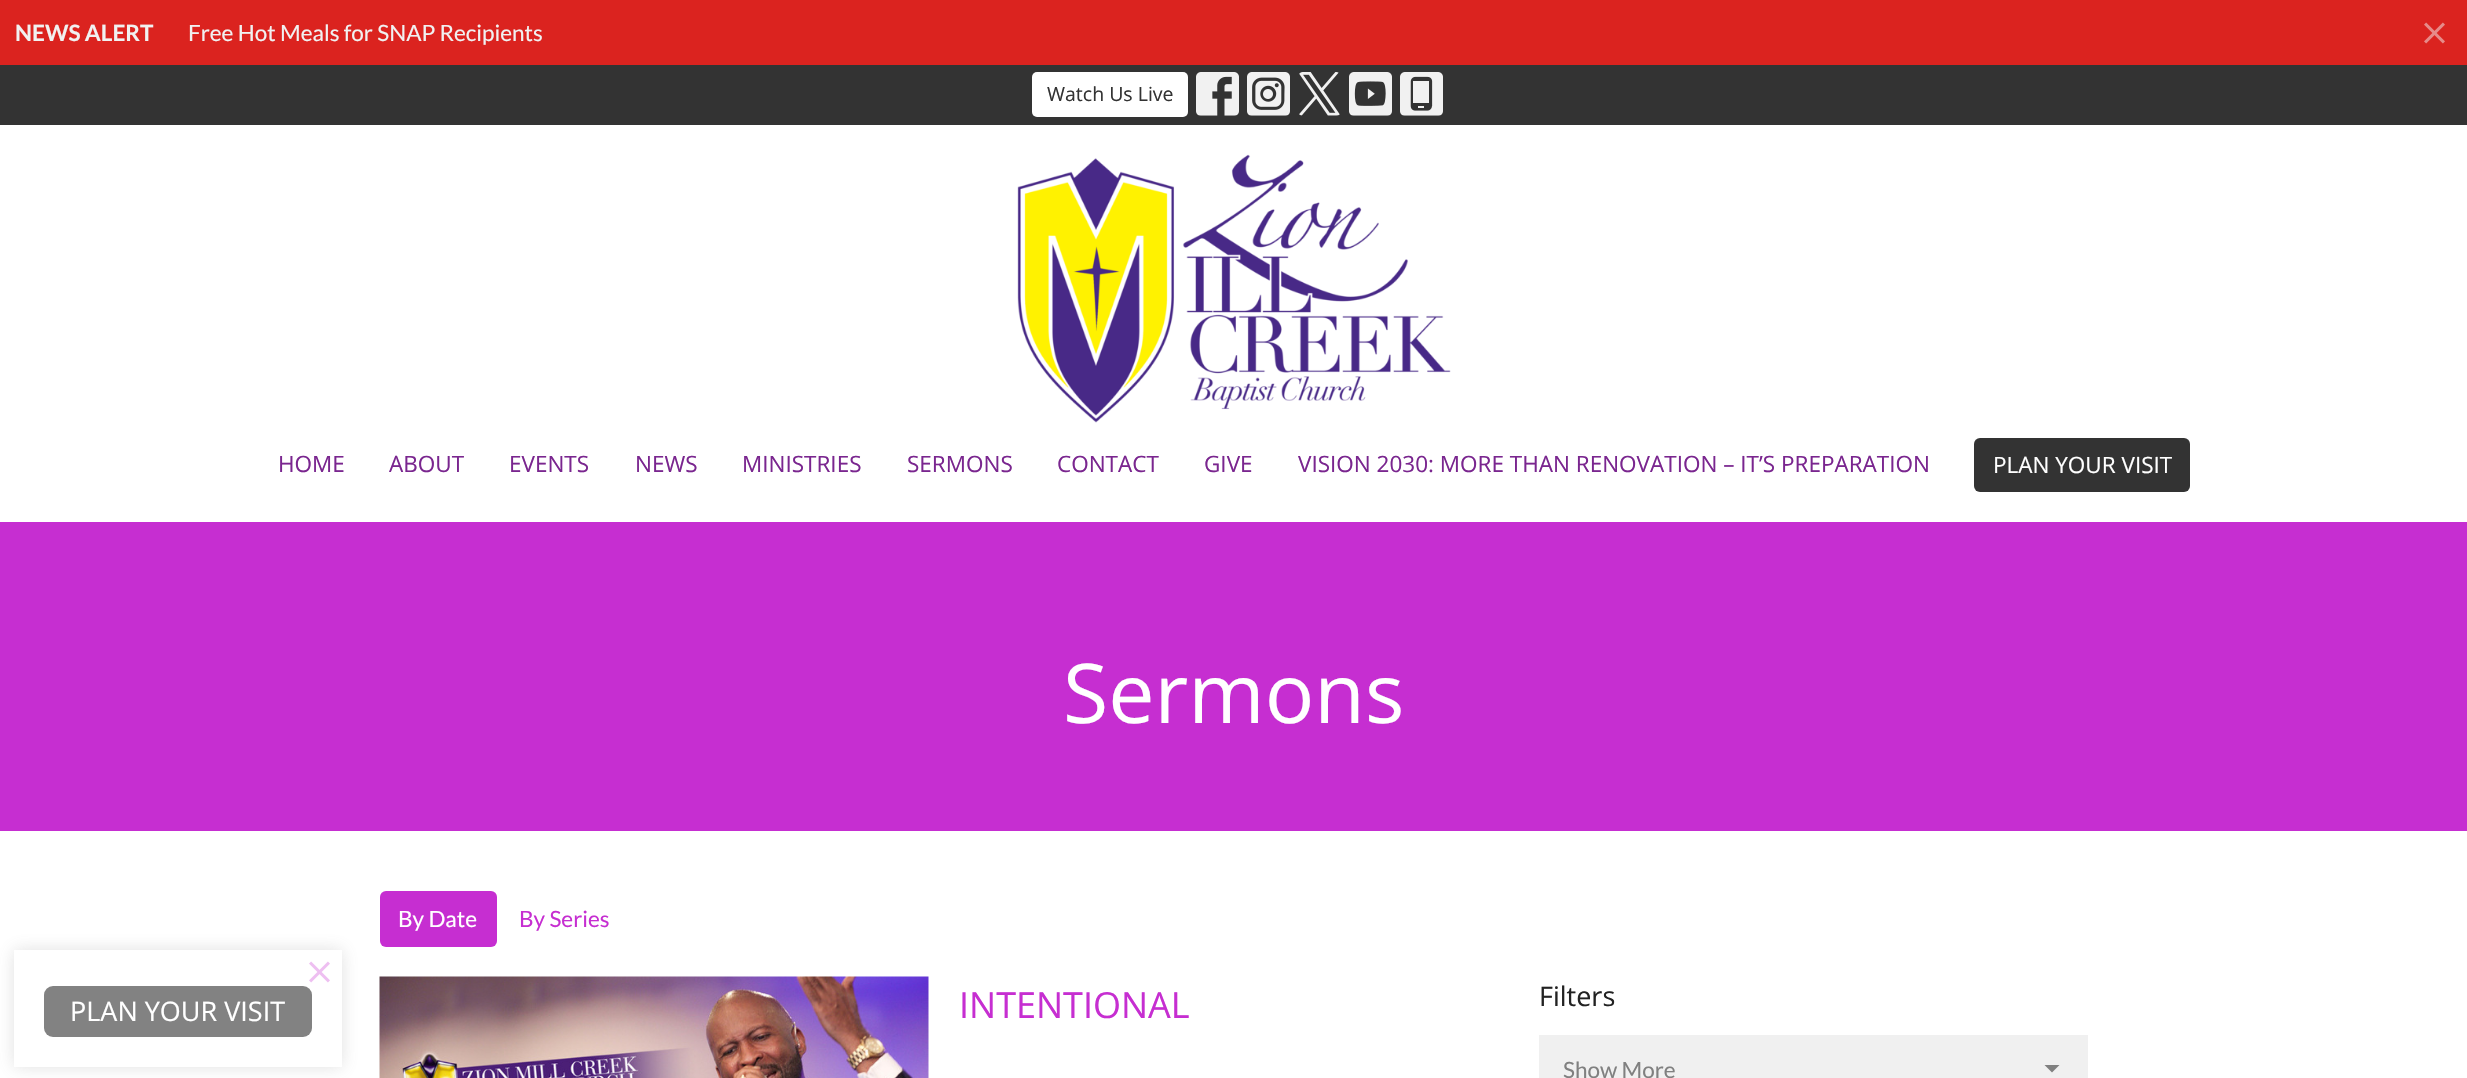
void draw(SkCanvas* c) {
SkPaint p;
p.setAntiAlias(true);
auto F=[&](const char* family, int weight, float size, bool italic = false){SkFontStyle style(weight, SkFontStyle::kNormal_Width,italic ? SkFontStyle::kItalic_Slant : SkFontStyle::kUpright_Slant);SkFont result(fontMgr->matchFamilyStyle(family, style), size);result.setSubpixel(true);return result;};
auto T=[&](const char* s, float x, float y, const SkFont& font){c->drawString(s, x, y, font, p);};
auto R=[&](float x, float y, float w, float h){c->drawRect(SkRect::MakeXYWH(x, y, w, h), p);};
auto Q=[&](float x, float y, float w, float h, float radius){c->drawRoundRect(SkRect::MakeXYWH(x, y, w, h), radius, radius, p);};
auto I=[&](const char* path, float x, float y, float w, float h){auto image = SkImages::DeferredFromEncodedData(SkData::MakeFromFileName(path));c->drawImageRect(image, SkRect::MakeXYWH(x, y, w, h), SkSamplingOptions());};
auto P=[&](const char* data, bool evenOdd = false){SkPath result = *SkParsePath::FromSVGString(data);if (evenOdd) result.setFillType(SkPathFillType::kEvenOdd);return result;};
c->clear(0xffffffff);
p.setColor(0xffdb231f);
R(0,0,2467,65);
auto f1 = F("Lato",700,22.5);
p.setColor(0xfff1f1f1);
T("NEWS ALERT",15,41,f1);
auto f2 = F("Lato",400,22.5);
T("Free Hot Meals for SNAP Recipients",188,41,f2);
I("1.png",2424,22,21,22);
p.setColor(0xff333333);
R(0,65,2467,60);
p.setColor(0xffffffff);
Q(1032,72,156,45,5);
auto f3 = F("Open Sans",400,19.5);
p.setColor(0xff333333);
T("Watch Us Live",1047,101,f3);
I("2.png",1196,72,43,44);
I("3.png",1247,72,43,44);
I("4.png",1299,72,41,44);
I("5.png",1349,72,43,44);
I("6.png",1400,72,43,44);
I("7.png",1017,154,434,269);
auto f4 = F("Open Sans",400,22.5);
p.setColor(0xff7a268f);
T("HOME",278,472,f4);
T("ABOUT",389,472,f4);
T("EVENTS",509,472,f4);
T("NEWS",635,472,f4);
T("MINISTRIES",742,472,f4);
T("SERMONS",907,472,f4);
T("CONTACT",1057,472,f4);
T("GIVE",1204,472,f4);
T("VISION 2030: MORE THAN RENOVATION – IT’S PREPARATION",1298,472,f4);
p.setColor(0xff333333);
Q(1974,438,216,54,6);
p.setColor(0xffffffff);
T("PLAN YOUR VISIT",1993,473,f4);
p.setColor(0xffc62ed1);
R(0,522,2467,309);
auto f5 = F("Open Sans",400,82.5);
p.setColor(0xffffffff);
T("Sermons",1063,723,f5);
p.setColor(0x33636363);
p.setMaskFilter(SkMaskFilter::MakeBlur(kNormal_SkBlurStyle, 8));
c->drawRect(SkRect::MakeXYWH(14,950,328,117),p);
p.setMaskFilter(nullptr);
p.setColor(0xffffffff);
R(14,950,328,117);
I("8.png",309,961,21,22);
p.setColor(0xff828282);
Q(44,986,268,51,9);
auto f6 = F("Open Sans",400,27);
p.setColor(0xffffffff);
T("PLAN YOUR VISIT",70,1021,f6);
p.setColor(0xffc62ed1);
Q(380,891,117,56,6);
p.setColor(0xffffffff);
T("By Date",398,927,f2);
p.setColor(0xffc62ed1);
T("By Series",519,927,f2);
I("9.png",379,976,550,102);
auto f7 = F("Open Sans",400,36);
T("INTENTIONAL",959,1018,f7);
p.setColor(0xff222222);
T("Filters",1539,1006,f6);
p.setColor(0xfff0f0f0);
R(1539,1035,549,43);
p.setColor(0xff808080);
T("Show More",1563,1078,f2);
c->drawPath(P("M2044.5 1065l7.5 7.5l7.5-7.5z"),p);
}
